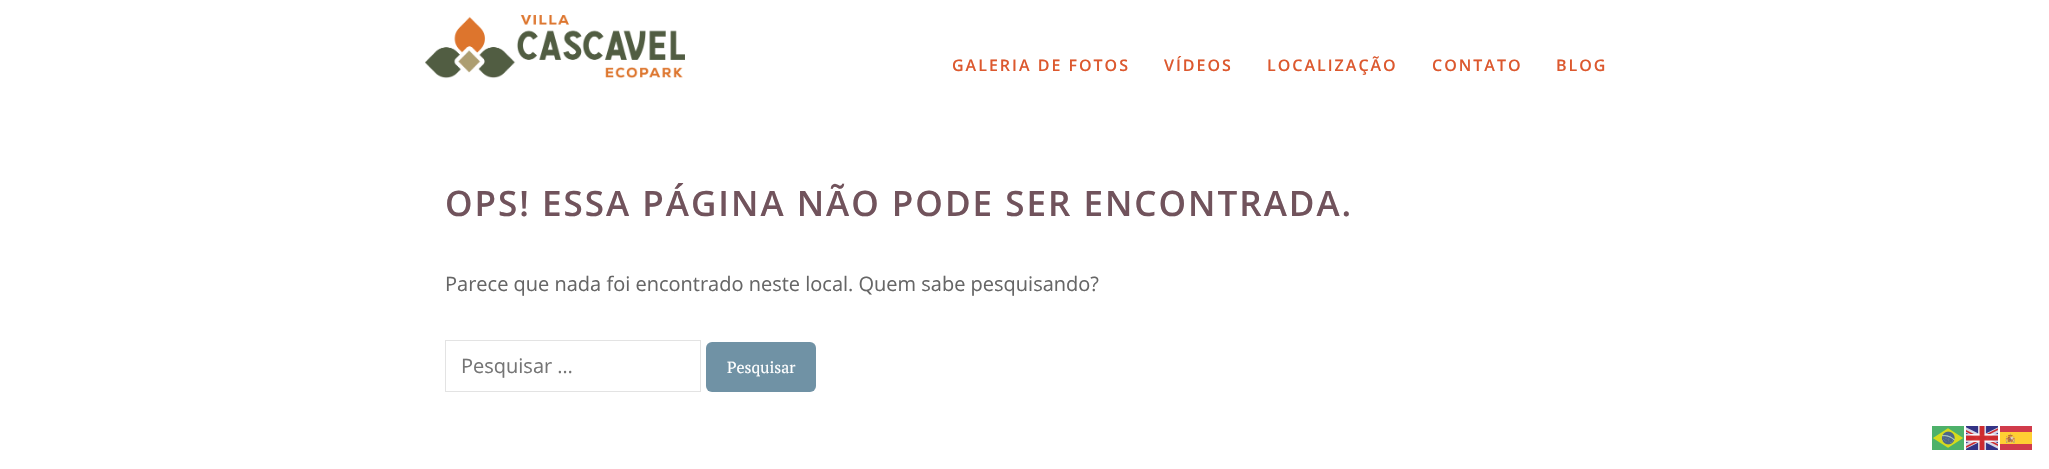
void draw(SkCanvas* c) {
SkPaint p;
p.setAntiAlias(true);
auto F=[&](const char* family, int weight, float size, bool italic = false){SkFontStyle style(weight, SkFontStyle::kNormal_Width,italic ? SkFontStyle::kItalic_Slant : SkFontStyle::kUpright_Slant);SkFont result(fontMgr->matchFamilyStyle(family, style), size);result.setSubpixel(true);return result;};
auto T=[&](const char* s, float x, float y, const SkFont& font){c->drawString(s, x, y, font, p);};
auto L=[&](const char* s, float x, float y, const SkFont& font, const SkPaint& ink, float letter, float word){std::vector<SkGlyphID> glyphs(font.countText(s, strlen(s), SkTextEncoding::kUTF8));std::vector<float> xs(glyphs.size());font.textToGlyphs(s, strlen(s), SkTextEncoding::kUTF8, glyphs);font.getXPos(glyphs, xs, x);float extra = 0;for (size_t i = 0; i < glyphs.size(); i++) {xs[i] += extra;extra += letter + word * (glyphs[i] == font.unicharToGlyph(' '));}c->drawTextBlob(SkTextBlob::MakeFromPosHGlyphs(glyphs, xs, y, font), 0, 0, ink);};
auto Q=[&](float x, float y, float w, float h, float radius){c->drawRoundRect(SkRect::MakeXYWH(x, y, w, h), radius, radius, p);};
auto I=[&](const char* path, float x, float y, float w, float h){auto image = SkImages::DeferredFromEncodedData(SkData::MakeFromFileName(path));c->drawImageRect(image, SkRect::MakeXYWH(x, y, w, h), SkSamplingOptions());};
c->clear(0xffffffff);
I("1.png",425,15,260,64);
auto f1 = F("Open Sans",600,16);
p.setColor(0xffdc582e);
L("GALERIA DE FOTOS",952,71,f1,p,2,0);
L("VÍDEOS",1164,71,f1,p,2,0);
L("LOCALIZAÇÃO",1267,71,f1,p,2,0);
L("CONTATO",1432,71,f1,p,2,0);
L("BLOG",1556,71,f1,p,2,0);
auto f2 = F("Open Sans",600,35);
p.setColor(0xff71535c);
L("OPS! ESSA PÁGINA NÃO PODE SER ENCONTRADA.",445,216,f2,p,2,0);
auto f3 = F("Open Sans",400,20);
p.setColor(0xff666666);
T("Parece que nada foi encontrado neste local. Quem sabe pesquisando?",445,291,f3);
p.setStroke(true);
p.setStrokeWidth(1);
p.setColor(0xffe3e3e3);
c->drawRect(SkRect::MakeXYWH(445.5,340.5,255,51),p);
p.setStroke(false);
p.setColor(0xff757575);
T("Pesquisar …",461,373,f3);
p.setColor(0xff7092a5);
Q(706,342,110,50,6);
auto f4 = F("PT Serif",400,16);
p.setColor(0xffffffff);
T("Pesquisar",727,373,f4);
I("2.png",1932,426,32,24);
I("3.png",1966,426,32,24);
I("4.png",2000,426,32,24);
}
